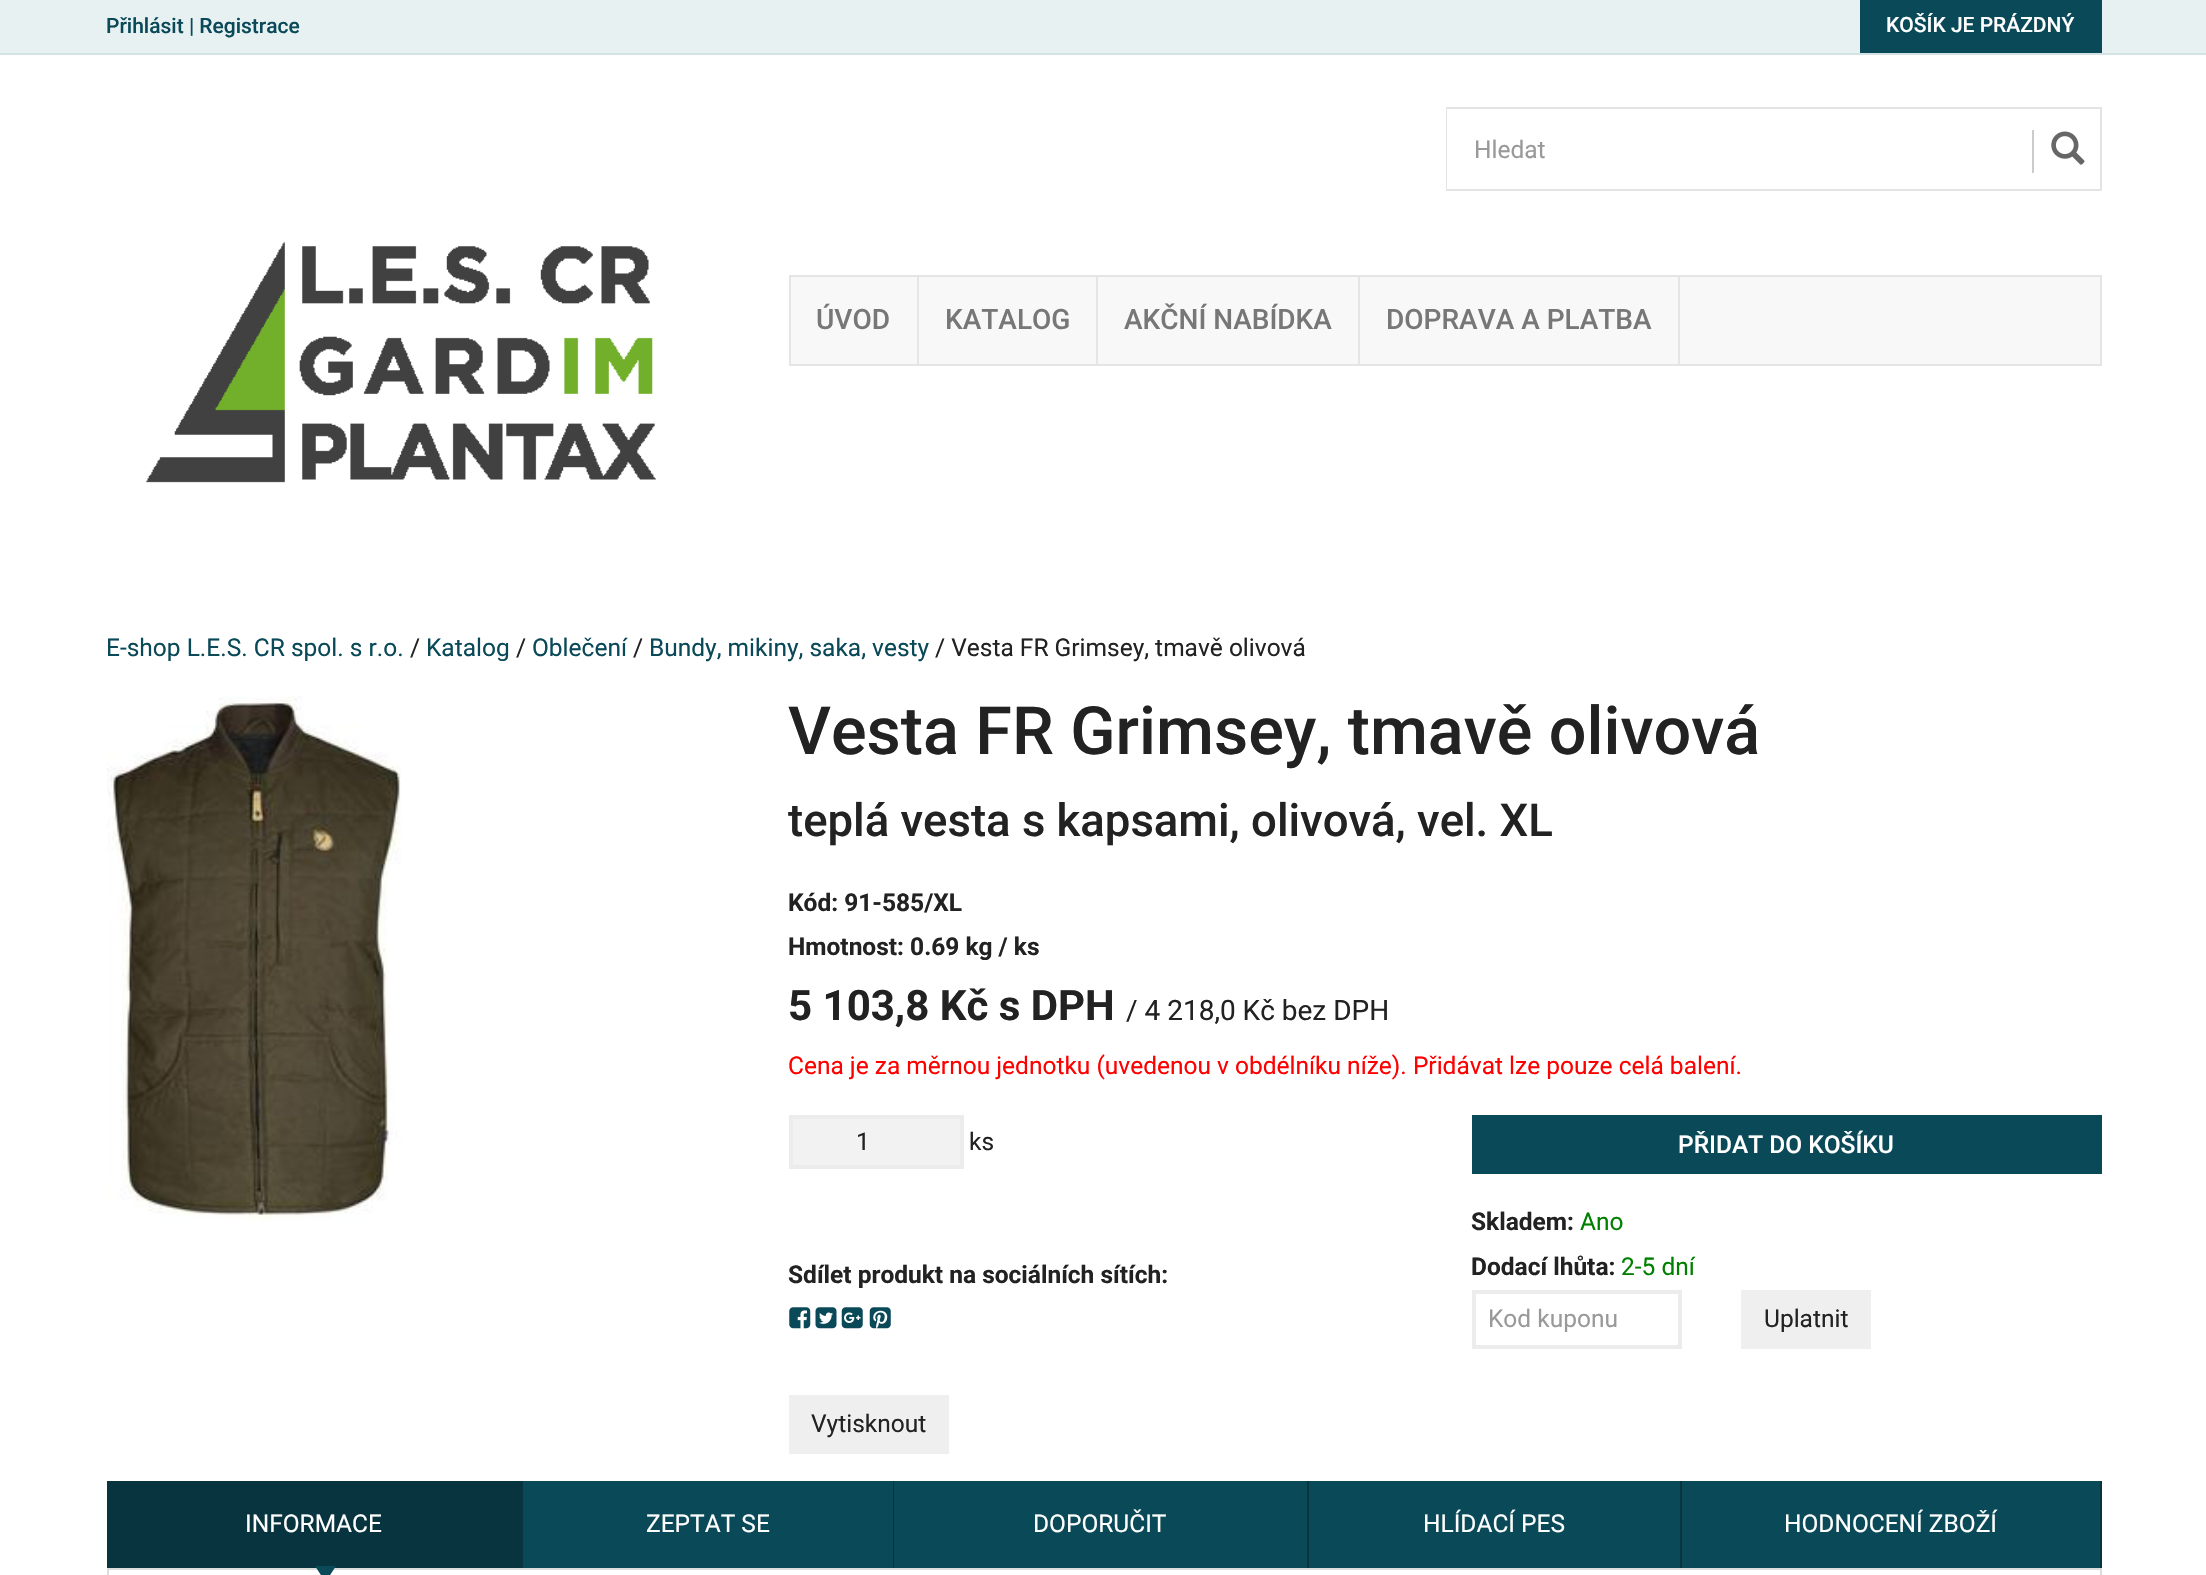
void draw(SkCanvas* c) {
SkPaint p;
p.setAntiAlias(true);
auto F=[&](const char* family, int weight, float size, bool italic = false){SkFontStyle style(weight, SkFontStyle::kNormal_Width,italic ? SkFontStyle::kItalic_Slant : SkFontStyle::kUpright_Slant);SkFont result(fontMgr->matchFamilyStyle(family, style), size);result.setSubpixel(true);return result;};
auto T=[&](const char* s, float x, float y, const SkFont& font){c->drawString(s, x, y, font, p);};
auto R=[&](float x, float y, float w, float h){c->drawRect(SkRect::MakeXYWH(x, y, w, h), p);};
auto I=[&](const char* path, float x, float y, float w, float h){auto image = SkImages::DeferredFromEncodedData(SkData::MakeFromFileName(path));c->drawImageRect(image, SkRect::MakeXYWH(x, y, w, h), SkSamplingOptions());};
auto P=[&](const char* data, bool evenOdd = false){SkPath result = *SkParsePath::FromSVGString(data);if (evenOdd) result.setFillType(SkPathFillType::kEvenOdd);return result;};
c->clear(0xffffffff);
p.setColor(0xffe8f1f2);
R(0,0,2206,53);
p.setColor(0xffd5e2e4);
R(0,53,2206,2);
auto f1 = F("Roboto",500,21);
p.setColor(0xff0a4958);
T("Přihlásit | Registrace",106,33,f1);
R(1860,0,242,53);
p.setColor(0xffffffff);
T("KOŠÍK JE PRÁZDNÝ",1886,32,f1);
I("1.png",146,242,510,241);
p.setStroke(true);
p.setStrokeWidth(2);
p.setColor(0xffe4e4e4);
c->drawRect(SkRect::MakeXYWH(1447,108,654,82),p);
p.setStroke(false);
p.setColor(0xffffffff);
R(1447,109,1,80);
auto f2 = F("Roboto",400,24.5);
p.setColor(0xff999999);
T("Hledat",1474,158,f2);
p.setColor(0xffcccccc);
R(2032,130,2,43);
I("2.png",2051,131,34,34);
p.setColor(0xfff8f8f8);
c->drawRect(SkRect::MakeXYWH(790,276,1311,89),p);
p.setStroke(true);
p.setColor(0xffe5e5e5);
c->drawRect(SkRect::MakeXYWH(790,276,1311,89),p);
p.setStroke(false);
R(917,277,2,87);
auto f3 = F("Roboto",500,28);
p.setColor(0xff777777);
T("ÚVOD",816,329,f3);
p.setColor(0xffe5e5e5);
R(1096,277,2,87);
p.setColor(0xff777777);
T("KATALOG",945,329,f3);
p.setColor(0xffe5e5e5);
R(1358,277,2,87);
p.setColor(0xff777777);
T("AKČNÍ NABÍDKA",1124,329,f3);
p.setColor(0xffe5e5e5);
R(1678,277,2,87);
p.setColor(0xff777777);
T("DOPRAVA A PLATBA",1386,329,f3);
p.setColor(0xff0a4958);
T("E-shop L.E.S. CR spol. s r.o.",106,656,f2);
p.setColor(0xff222222);
T("/",410,656,f2);
p.setColor(0xff0a4958);
T("Katalog",426,656,f2);
p.setColor(0xff222222);
T("/",516,656,f2);
p.setColor(0xff0a4958);
T("Oblečení",532,656,f2);
p.setColor(0xff222222);
T("/",633,656,f2);
p.setColor(0xff0a4958);
T("Bundy, mikiny, saka, vesty",649,656,f2);
p.setColor(0xff222222);
T("/ Vesta FR Grimsey, tmavě olivová",935,656,f2);
I("3.png",107,696,295,526);
auto f4 = F("Roboto",500,66.5);
T("Vesta FR Grimsey, tmavě olivová",788,754,f4);
auto f5 = F("Roboto",500,45.5);
T("teplá vesta s kapsami, olivová, vel. XL",788,836,f5);
auto f6 = F("Roboto",700,24.5);
T("Kód: 91-585/XL",788,911,f6);
T("Hmotnost: 0.69 kg / ks",788,955,f6);
auto f7 = F("Roboto",700,42);
T("5 103,8 Kč s DPH",788,1020,f7);
auto f8 = F("Roboto",400,28);
T("/ 4 218,0 Kč bez DPH",1126,1020,f8);
p.setColor(0xffff0000);
T("Cena je za měrnou jednotku (uvedenou v obdélníku níže). Přidávat lze pouze celá balení.",788,1074,f2);
p.setColor(0xfff2f2f2);
c->drawRect(SkRect::MakeXYWH(791,1117,171,50),p);
p.setStroke(true);
p.setStrokeWidth(4);
p.setColor(0xffececec);
c->drawRect(SkRect::MakeXYWH(791,1117,171,50),p);
p.setStroke(false);
p.setColor(0xff222222);
T("1",856,1150,f2);
T("ks",969,1150,f2);
p.setColor(0xff0a4958);
R(1472,1115,630,59);
auto f9 = F("Roboto",500,24.5);
p.setColor(0xffffffff);
T("PŘIDAT DO KOŠÍKU",1678,1153,f9);
p.setColor(0xff222222);
T("Sdílet produkt na sociálních sítích:",788,1283,f6);
I("4.png",789,1307,22,22);
I("5.png",815,1307,22,22);
I("6.png",841,1307,22,22);
I("7.png",869,1307,22,22);
T("Skladem:",1471,1230,f6);
p.setColor(0xff008000);
T("Ano",1580,1230,f2);
p.setColor(0xff222222);
T("Dodací lhůta:",1471,1275,f6);
p.setColor(0xff008000);
T("2-5 dní",1621,1275,f2);
p.setStroke(true);
p.setColor(0xffececec);
c->drawRect(SkRect::MakeXYWH(1474,1292,206,55),p);
p.setStroke(false);
p.setColor(0xff999999);
T("Kod kuponu",1488,1327,f2);
p.setColor(0xffefefef);
R(1741,1290,130,59);
p.setColor(0xff222222);
T("Uplatnit",1764,1327,f2);
p.setColor(0xffefefef);
R(789,1395,160,59);
p.setColor(0xff222222);
T("Vytisknout",811,1432,f2);
p.setColor(0xff07343f);
R(107,1481,416,87);
p.setColor(0xffffffff);
T("INFORMACE",245,1532,f2);
p.setStroke(true);
p.setStrokeWidth(2);
p.setColor(0xffdddddd);
c->drawRect(SkRect::MakeXYWH(108,1569,1993,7),p);
p.setStroke(false);
p.setColor(0xff0a4958);
c->drawPath(P("M315 1566h21l-10.5 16z"),p);
R(523,1481,370,87);
p.setColor(0xff07343f);
R(893,1481,1,87);
p.setColor(0xffffffff);
T("ZEPTAT SE",646,1532,f2);
p.setColor(0xff0a4958);
R(894,1481,413,87);
p.setColor(0xff07343f);
R(1307,1481,2,87);
p.setColor(0xffffffff);
T("DOPORUČIT",1033,1532,f2);
p.setColor(0xff0a4958);
R(1309,1481,371,87);
p.setColor(0xff07343f);
R(1680,1481,2,87);
p.setColor(0xffffffff);
T("HLÍDACÍ PES",1423,1532,f2);
p.setColor(0xff0a4958);
R(1682,1481,418,87);
p.setColor(0xff07343f);
R(2100,1481,2,87);
p.setColor(0xffffffff);
T("HODNOCENÍ ZBOŽÍ",1784,1532,f2);
}
